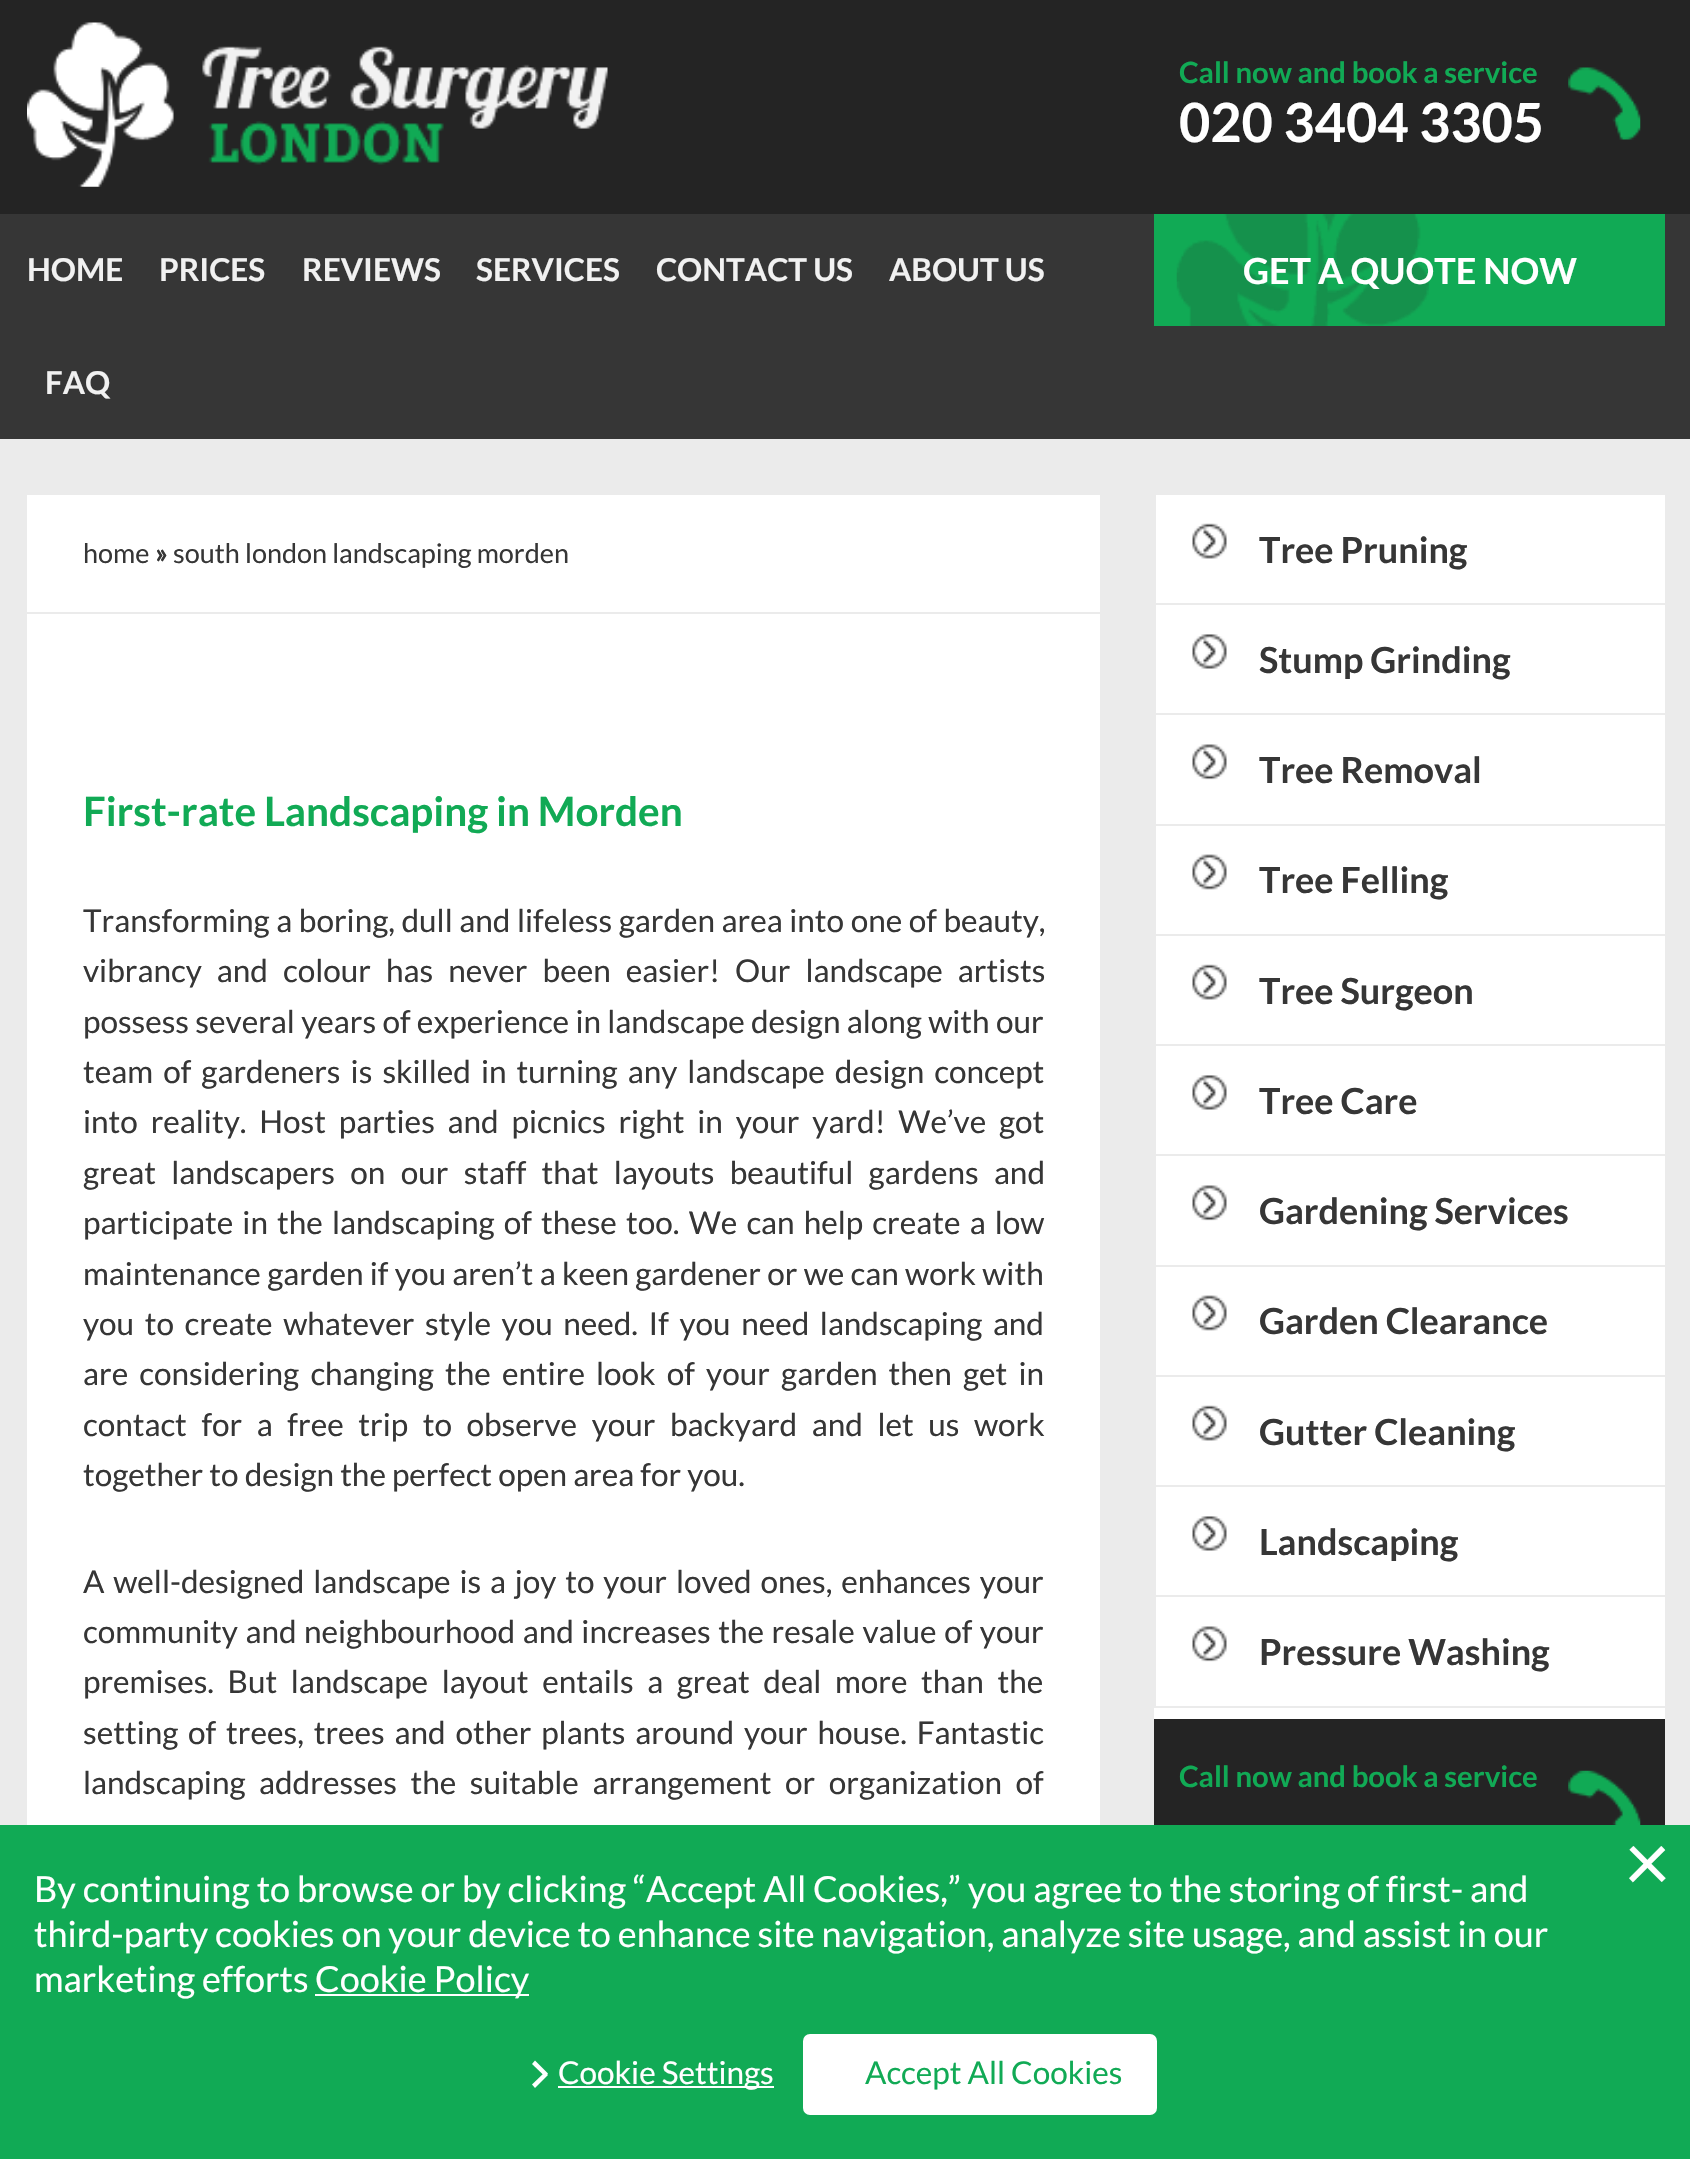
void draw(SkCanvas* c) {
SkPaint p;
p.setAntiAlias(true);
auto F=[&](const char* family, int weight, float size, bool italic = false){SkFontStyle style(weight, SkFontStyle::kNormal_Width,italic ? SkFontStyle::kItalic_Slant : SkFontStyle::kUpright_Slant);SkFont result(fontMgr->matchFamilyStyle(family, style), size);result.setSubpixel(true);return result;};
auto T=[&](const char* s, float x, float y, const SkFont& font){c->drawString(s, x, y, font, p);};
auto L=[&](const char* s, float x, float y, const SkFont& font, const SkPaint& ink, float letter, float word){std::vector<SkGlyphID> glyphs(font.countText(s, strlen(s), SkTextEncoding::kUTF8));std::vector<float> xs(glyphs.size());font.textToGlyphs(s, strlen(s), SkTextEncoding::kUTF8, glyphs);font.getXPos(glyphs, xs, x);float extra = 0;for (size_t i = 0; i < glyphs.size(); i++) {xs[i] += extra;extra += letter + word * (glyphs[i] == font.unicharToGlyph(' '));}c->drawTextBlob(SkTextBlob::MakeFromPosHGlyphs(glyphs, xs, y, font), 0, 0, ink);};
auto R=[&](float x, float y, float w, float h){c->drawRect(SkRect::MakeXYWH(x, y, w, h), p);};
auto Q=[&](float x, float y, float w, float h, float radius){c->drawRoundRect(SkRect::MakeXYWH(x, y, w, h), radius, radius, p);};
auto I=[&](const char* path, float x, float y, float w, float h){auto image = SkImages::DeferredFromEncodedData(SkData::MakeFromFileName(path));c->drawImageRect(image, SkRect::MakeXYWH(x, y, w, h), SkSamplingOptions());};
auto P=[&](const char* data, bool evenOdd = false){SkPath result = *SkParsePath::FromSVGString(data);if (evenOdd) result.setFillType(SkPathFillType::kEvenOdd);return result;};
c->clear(0xffebebeb);
p.setColor(0xff242424);
R(0,0,1690,214);
I("1.png",27,22,581,165);
I("2.png",1568,67,73,73);
auto f1 = F("Lato",700,29.25);
p.setColor(0xff11aa55);
T("Call now and book a service",1179,83,f1);
auto f2 = F("Lato",700,54);
p.setColor(0xffffffff);
T("020 3404 3305",1179,142,f2);
p.setColor(0xff363636);
R(0,214,1690,225);
auto f3 = F("Lato",700,31.5);
p.setColor(0xfff1f1f1);
T("HOME",27,281,f3);
T("PRICES",159,281,f3);
T("REVIEWS",302,281,f3);
T("SERVICES",476,281,f3);
T("CONTACT US",656,281,f3);
T("ABOUT US",889,281,f3);
T("FAQ",45,394,f3);
p.setColor(0xff11aa55);
R(1154,214,511,112);
I("3.png",1176,214,253,112);
auto f4 = F("Lato",700,36);
p.setColor(0xffffffff);
T("GET A QUOTE NOW",1243,284,f4);
R(27,495,1073,1330);
p.setColor(0xffebebeb);
R(27,612,1073,2);
auto f5 = F("Lato",400,27);
p.setColor(0xff363636);
T("home",83,563,f5);
auto f6 = F("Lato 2",700,27);
T("»",155,563,f6);
T("south london landscaping morden",173,563,f5);
auto f7 = F("Lato",700,40.5);
p.setColor(0xff11aa55);
T("First-rate Landscaping in Morden",83,826,f7);
auto f8 = F("Lato",400,31.5);
p.setColor(0xff363636);
L("Transforming a boring, dull and lifeless garden area into one of beauty,",83,932,f8,p,0,.5);
L("vibrancy and colour has never been easier! Our landscape artists",83,982,f8,p,0,9);
L("possess several years of experience in landscape design along with our",83,1033,f8,p,0,.25);
L("team of gardeners is skilled in turning any landscape design concept",83,1083,f8,p,0,4);
L("into reality. Host parties and picnics right in your yard! We’ve got",83,1133,f8,p,0,6.75);
L("great landscapers on our staff that layouts beautiful gardens and",83,1184,f8,p,0,9.25);
L("participate in the landscaping of these too. We can help create a low",83,1234,f8,p,0,3.1);
L("maintenance garden if you aren’t a keen gardener or we can work with",83,1285,f8,p,0,.25);
L("you to create whatever style you need. If you need landscaping and",83,1335,f8,p,0,4.5);
L("are considering changing the entire look of your garden then get in",83,1385,f8,p,0,5.1);
L("contact for a free trip to observe your backyard and let us work",83,1436,f8,p,0,8.5);
T("together to design the perfect open area for you.",83,1486,f8);
L("A well-designed landscape is a joy to your loved ones, enhances your",83,1593,f8,p,0,2.75);
L("community and neighbourhood and increases the resale value of your",83,1643,f8,p,0,1.5);
L("premises. But landscape layout entails a great deal more than the",83,1693,f8,p,0,7.5);
L("setting of trees, trees and other plants around your house. Fantastic",83,1744,f8,p,0,3.75);
L("landscaping addresses the suitable arrangement or organization of",83,1794,f8,p,0,7.5);
p.setColor(0xffffffff);
R(1154,495,511,1224);
I("4.png",1192,523,35,36);
p.setColor(0xffebebeb);
R(1154,603,511,2);
R(1154,495,2,110);
p.setColor(0xff363636);
T("Tree Pruning",1259,563,f4);
I("5.png",1192,634,35,35);
p.setColor(0xffebebeb);
R(1154,713,511,2);
R(1154,605,2,111);
p.setColor(0xff363636);
T("Stump Grinding",1259,673,f4);
I("6.png",1192,744,35,36);
p.setColor(0xffebebeb);
R(1154,824,511,2);
R(1154,716,2,110);
p.setColor(0xff363636);
T("Tree Removal",1259,783,f4);
I("7.png",1192,854,35,36);
p.setColor(0xffebebeb);
R(1154,934,511,2);
R(1154,826,2,110);
p.setColor(0xff363636);
T("Tree Felling",1259,893,f4);
I("4.png",1192,964,35,36);
p.setColor(0xffebebeb);
R(1154,1044,511,2);
R(1154,936,2,110);
p.setColor(0xff363636);
T("Tree Surgeon",1259,1004,f4);
I("5.png",1192,1075,35,35);
p.setColor(0xffebebeb);
R(1154,1154,511,2);
R(1154,1046,2,111);
p.setColor(0xff363636);
T("Tree Care",1259,1114,f4);
I("8.png",1192,1185,35,36);
p.setColor(0xffebebeb);
R(1154,1265,511,2);
R(1154,1157,2,110);
p.setColor(0xff363636);
T("Gardening Services",1259,1224,f4);
I("9.png",1192,1295,35,36);
p.setColor(0xffebebeb);
R(1154,1375,511,2);
R(1154,1267,2,110);
p.setColor(0xff363636);
T("Garden Clearance",1259,1334,f4);
I("4.png",1192,1405,35,36);
p.setColor(0xffebebeb);
R(1154,1485,511,2);
R(1154,1377,2,110);
p.setColor(0xff363636);
T("Gutter Cleaning",1259,1445,f4);
I("5.png",1192,1516,35,35);
p.setColor(0xffebebeb);
R(1154,1595,511,2);
R(1154,1487,2,111);
p.setColor(0xff363636);
T("Landscaping",1259,1555,f4);
I("6.png",1192,1626,35,36);
p.setColor(0xffebebeb);
R(1154,1706,511,2);
R(1154,1598,2,110);
p.setColor(0xff363636);
T("Pressure Washing",1259,1665,f4);
p.setColor(0xff242424);
R(1154,1719,511,106);
I("10.png",1568,1770,73,55);
p.setColor(0xff11aa55);
T("Call now and book a service",1179,1787,f1);
R(0,1825,1690,334);
auto f9 = F("Lato",400,81);
p.setColor(0xffffffff);
T("×",1624,1891,f9);
c->drawPath(P("M532 2064l3-3.5l13 13l-3 3z"),p);
R(558,2086,216,2);
T("Cookie Settings",558,2084,f8);
c->drawPath(P("M545 2072l3 3l-13 13l-3-3.5z"),p);
Q(803,2034,354,81,7);
p.setColor(0xff11aa55);
T("Accept All Cookies",865,2084,f8);
auto f10 = F("Lato",400,36);
p.setColor(0xffffffff);
T("By continuing to browse or by clicking “Accept All Cookies,” you agree to the storing of first- and",34,1902,f10);
T("third-party cookies on your device to enhance site navigation, analyze site usage, and assist in our",34,1947,f10);
T("marketing efforts",34,1992,f10);
R(315,1994,214,2);
T("Cookie Policy",315,1992,f10);
}
